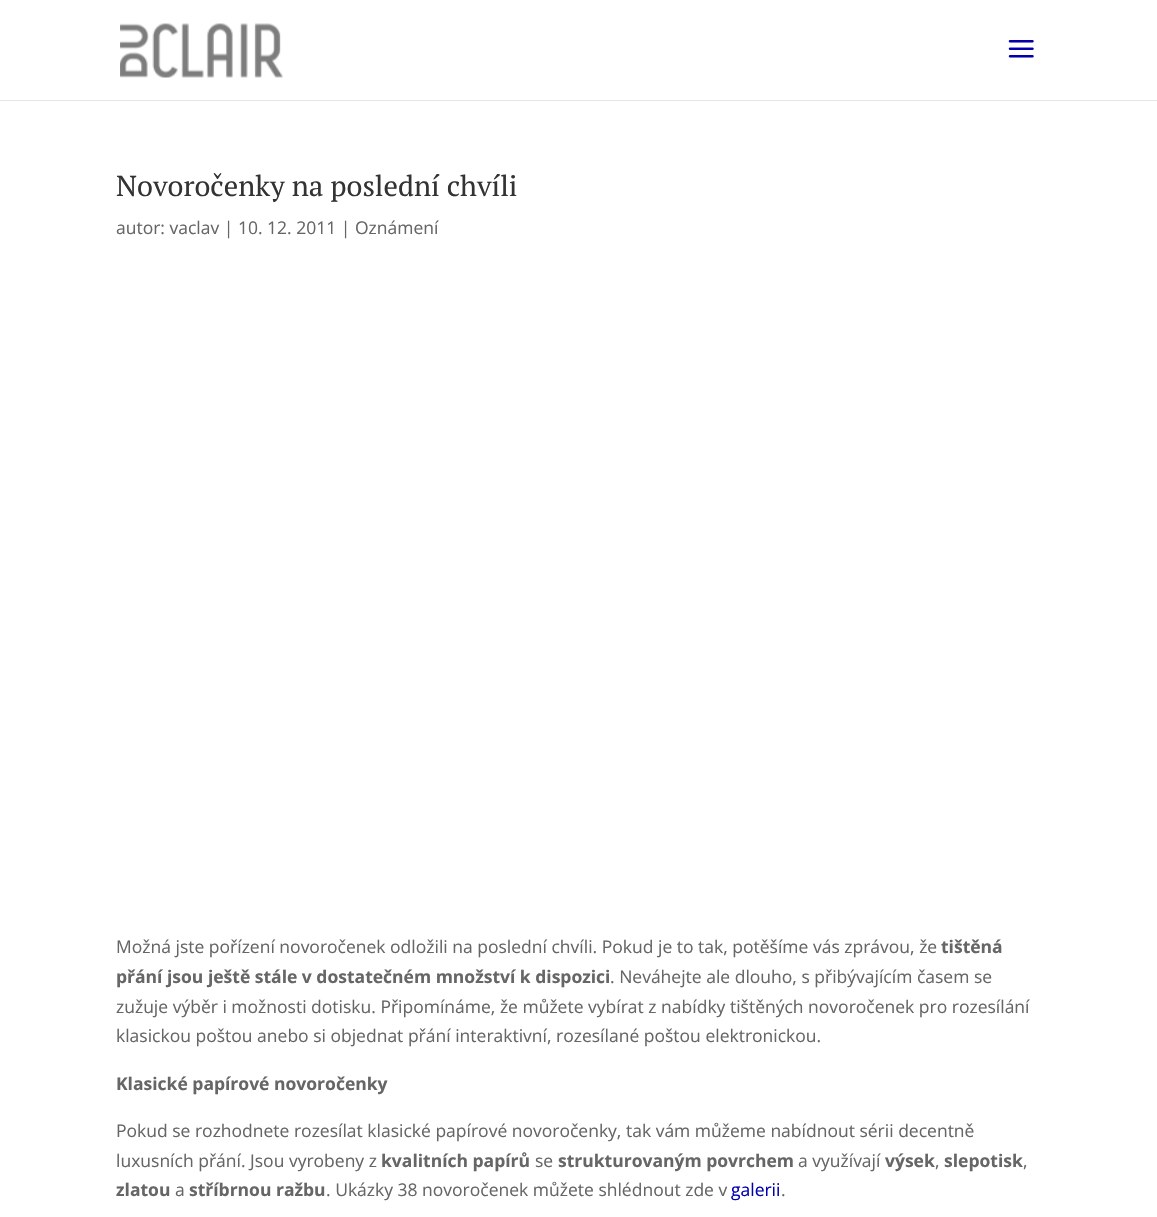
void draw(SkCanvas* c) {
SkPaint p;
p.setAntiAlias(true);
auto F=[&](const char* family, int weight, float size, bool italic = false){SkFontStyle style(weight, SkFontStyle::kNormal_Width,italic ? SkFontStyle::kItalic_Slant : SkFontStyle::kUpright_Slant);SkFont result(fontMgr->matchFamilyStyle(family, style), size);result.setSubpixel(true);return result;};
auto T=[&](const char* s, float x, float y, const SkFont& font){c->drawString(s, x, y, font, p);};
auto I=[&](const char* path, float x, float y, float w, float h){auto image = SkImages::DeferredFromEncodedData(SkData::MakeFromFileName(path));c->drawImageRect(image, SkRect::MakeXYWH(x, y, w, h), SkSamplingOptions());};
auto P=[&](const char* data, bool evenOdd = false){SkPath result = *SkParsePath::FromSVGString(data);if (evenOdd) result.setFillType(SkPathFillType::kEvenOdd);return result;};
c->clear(0xffffffff);
p.setColor(0xffe6e6e6);
c->drawPath(P("M0 100v1h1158v-100v99z"),p);
I("1.png",120,23,163,55);
I("2.png",1008,40,26,18);
auto f1 = F("PT Serif",400,28.75);
p.setColor(0xff333333);
T("Novoročenky na poslední chvíli",116,196,f1);
auto f2 = F("Open Sans",400,17.5);
p.setColor(0xff666666);
T("autor: vaclav | 10. 12. 2011 | Oznámení",116,234,f2);
T("Možná jste pořízení novoročenek odložili na poslední chvíli. Pokud je to tak, potěšíme vás zprávou, že",116,953,f2);
auto f3 = F("Open Sans",700,17.5);
T("tištěná",941,953,f3);
T("přání jsou ještě stále v dostatečném množství k dispozici",116,983,f3);
T(". Neváhejte ale dlouho, s přibývajícím časem se",610,983,f2);
T("zužuje výběr i možnosti dotisku. Připomínáme, že můžete vybírat z nabídky tištěných novoročenek pro rozesílání",116,1013,f2);
T("klasickou poštou anebo si objednat přání interaktivní, rozesílané poštou elektronickou.",116,1042,f2);
T("Klasické papírové novoročenky",116,1090,f3);
T("Pokud se rozhodnete rozesílat klasické papírové novoročenky, tak vám můžeme nabídnout sérii decentně",116,1137,f2);
T("luxusních přání. Jsou vyrobeny z",116,1167,f2);
T("kvalitních papírů",381,1167,f3);
T("se",535,1167,f2);
T("strukturovaným povrchem",558,1167,f3);
T("a využívají",798,1167,f2);
T("výsek",885,1167,f3);
T(",",935,1167,f2);
T("slepotisk",944,1167,f3);
T(",",1023,1167,f2);
T("zlatou",116,1196,f3);
T("a",175,1196,f2);
T("stříbrnou ražbu",189,1196,f3);
T(". Ukázky 38 novoročenek můžete shlédnout zde v",326,1196,f2);
p.setColor(0xff0200ad);
T("galerii",731,1196,f2);
p.setColor(0xff666666);
T(".",781,1196,f2);
}
